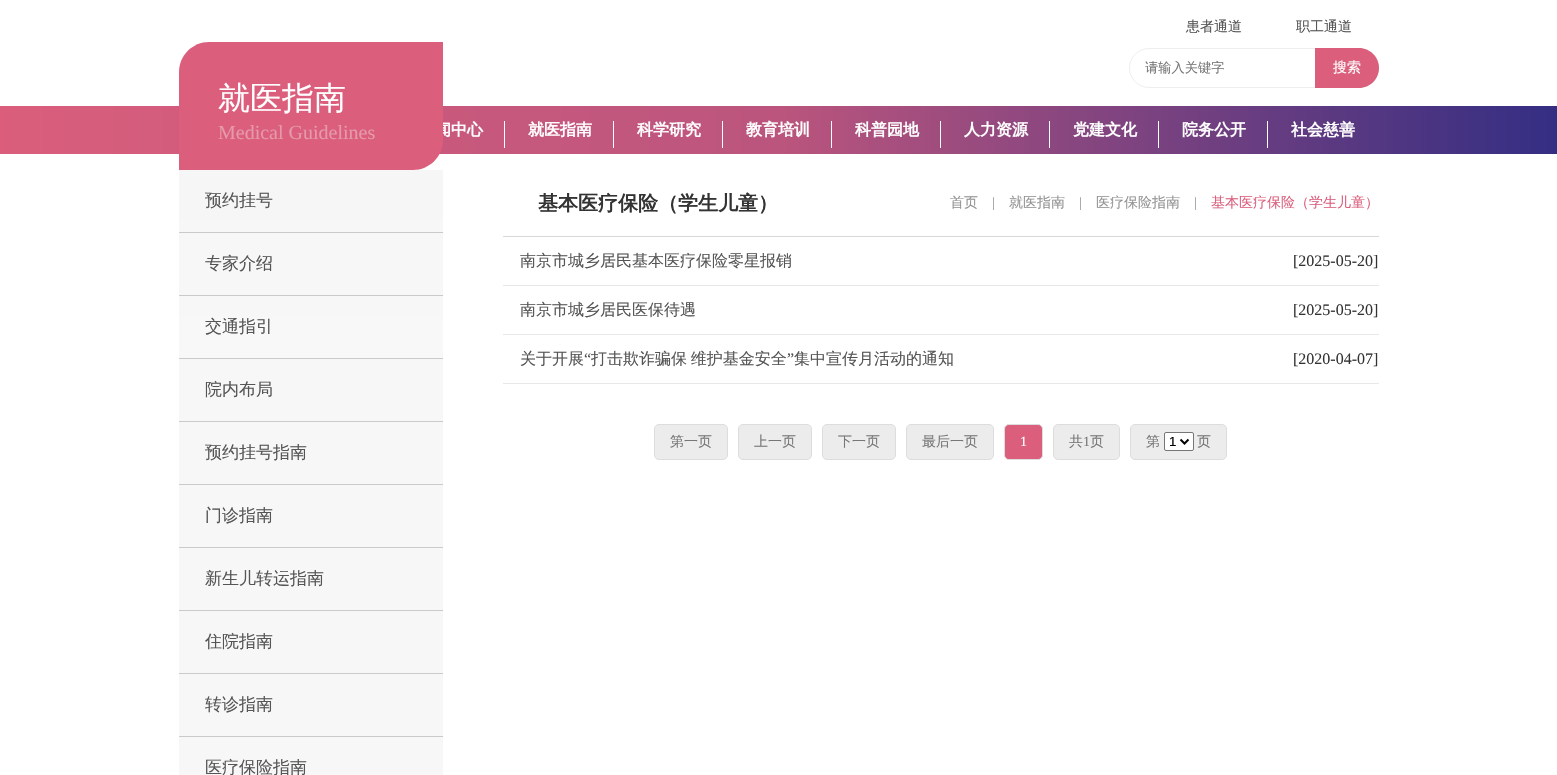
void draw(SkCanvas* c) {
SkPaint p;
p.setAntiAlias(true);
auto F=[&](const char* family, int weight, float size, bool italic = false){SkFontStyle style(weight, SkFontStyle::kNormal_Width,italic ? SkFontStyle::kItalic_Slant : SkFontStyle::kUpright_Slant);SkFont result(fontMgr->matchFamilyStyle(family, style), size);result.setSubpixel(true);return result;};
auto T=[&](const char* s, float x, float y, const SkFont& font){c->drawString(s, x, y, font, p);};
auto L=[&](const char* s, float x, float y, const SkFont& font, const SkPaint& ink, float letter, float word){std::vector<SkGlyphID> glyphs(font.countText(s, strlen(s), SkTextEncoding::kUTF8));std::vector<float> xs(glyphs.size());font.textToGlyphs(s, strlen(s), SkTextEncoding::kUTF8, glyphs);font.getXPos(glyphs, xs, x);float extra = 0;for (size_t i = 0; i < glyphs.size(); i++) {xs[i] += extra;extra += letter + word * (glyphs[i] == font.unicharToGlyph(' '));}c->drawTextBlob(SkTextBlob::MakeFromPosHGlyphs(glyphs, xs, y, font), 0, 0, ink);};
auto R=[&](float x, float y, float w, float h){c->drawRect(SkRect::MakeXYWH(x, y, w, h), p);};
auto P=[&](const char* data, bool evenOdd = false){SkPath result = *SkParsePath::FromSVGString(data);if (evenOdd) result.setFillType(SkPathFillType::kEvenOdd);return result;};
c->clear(0xffffffff);
auto f1 = F("WenQuanYi Zen Hei",500,14);
p.setColor(0xff555555);
T("患者通道",1186,31,f1);
T("职工通道",1296,31,f1);
p.setStroke(true);
p.setStrokeWidth(1);
p.setColor(0xffeeeeee);
c->drawRoundRect(SkRect::MakeXYWH(1129.5,48.5,249,39),19.5,19.5,p);
auto f2 = F("WenQuanYi Zen Hei",500,13.25);
p.setStroke(false);
p.setColor(0xff777777);
T("请输入关键字",1145,72,f2);
p.setColor(0xffdb5e7c);
c->drawPath(P("M1315 48h44c11 0 20 9 20 20c0 11-9 20-20 20h-44z"),p);
p.setColor(0xffffffff);
T("搜索",1333,72,f1);
{
const SkColor colors[] = {0xffda5e7c,0xffbb557d,0xff342e83};
const float stops[] = {0,.5,1};
const SkPoint ends[] = {{0,130}, {1557,130}};
p.setShader(SkGradientShader::MakeLinear(ends, colors, stops, 3, SkTileMode::kClamp));
p.setAlpha(255);
}
R(0,106,1557,48);
auto f3 = F("WenQuanYi Zen Hei",700,16);
p.setShader(nullptr);
p.setColor(0xffffffff);
T("闻中心",435,135,f3);
R(504,121,1,27);
T("就医指南",528,135,f3);
R(613,121,1,27);
T("科学研究",637,135,f3);
R(722,121,1,27);
T("教育培训",746,135,f3);
R(831,121,1,27);
T("科普园地",855,135,f3);
R(940,121,1,27);
T("人力资源",964,135,f3);
R(1049,121,1,27);
T("党建文化",1073,135,f3);
R(1158,121,1,27);
T("院务公开",1182,135,f3);
R(1267,121,1,27);
T("社会慈善",1291,135,f3);
{
const SkColor colors[] = {0xfff6f6f6,0xffffffff};
const float stops[] = {0,1};
const SkPoint ends[] = {{311,170}, {311,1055}};
p.setShader(SkGradientShader::MakeLinear(ends, colors, stops, 2, SkTileMode::kClamp));
p.setAlpha(255);
}
R(179,170,264,188);
p.setShader(nullptr);
p.setColor(0xffdb5e7c);
c->drawPath(P("M209 42h234v98c0 16.5-13.5 30-30 30h-234v-98c0-16.5 13.5-30 30-30z"),p);
auto f4 = F("WenQuanYi Zen Hei",500,32);
p.setColor(0xffffffff);
T("就医指南",218,109,f4);
auto f5 = F("Liberation Serif",400,20);
p.setColor(0xffe699aa);
T("Medical Guidelines",218,139,f5);
p.setColor(0xffcacaca);
R(179,232,264,1);
auto f6 = F("WenQuanYi Zen Hei",500,17);
p.setColor(0xff555555);
T("预约挂号",205,206,f6);
p.setColor(0xffcacaca);
R(179,295,264,1);
p.setColor(0xff555555);
T("专家介绍",205,269,f6);
p.setColor(0xffcacaca);
R(179,358,264,1);
p.setColor(0xff555555);
T("交通指引",205,332,f6);
p.setColor(0xfff7f7f7);
R(179,359,264,62);
p.setColor(0xffcacaca);
R(179,421,264,1);
p.setColor(0xff555555);
T("院内布局",205,395,f6);
p.setColor(0xfff7f7f7);
R(179,422,264,62);
p.setColor(0xffcacaca);
R(179,484,264,1);
p.setColor(0xff555555);
T("预约挂号指南",205,458,f6);
p.setColor(0xfff7f7f7);
R(179,485,264,62);
p.setColor(0xffcacaca);
R(179,547,264,1);
p.setColor(0xff555555);
T("门诊指南",205,521,f6);
p.setColor(0xfff7f7f7);
R(179,548,264,62);
p.setColor(0xffcacaca);
R(179,610,264,1);
p.setColor(0xff555555);
T("新生儿转运指南",205,584,f6);
p.setColor(0xfff7f7f7);
R(179,611,264,62);
p.setColor(0xffcacaca);
R(179,673,264,1);
p.setColor(0xff555555);
T("住院指南",205,647,f6);
p.setColor(0xfff7f7f7);
R(179,674,264,62);
p.setColor(0xffcacaca);
R(179,736,264,1);
p.setColor(0xff555555);
T("转诊指南",205,710,f6);
p.setColor(0xfff7f7f7);
R(179,737,264,38);
p.setColor(0xff555555);
T("医疗保险指南",205,773,f6);
p.setColor(0xffd7d7d7);
R(503,236,876,1);
auto f7 = F("WenQuanYi Zen Hei",700,20);
p.setColor(0xff333333);
T("基本医疗保险（学生儿童）",538,210,f7);
p.setColor(0xff929292);
T("首页",950,207,f1);
auto f8 = F("Liberation Serif",400,14);
T("|",992,207,f8);
T("就医指南",1009,207,f1);
T("|",1079,207,f8);
T("医疗保险指南",1096,207,f1);
T("|",1194,207,f8);
p.setColor(0xffdb5e7c);
T("基本医疗保险（学生儿童）",1211,207,f1);
p.setColor(0xffe8e8e8);
R(503,285,876,1);
auto f9 = F("WenQuanYi Zen Hei",500,16);
p.setColor(0xff555555);
T("南京市城乡居民基本医疗保险零星报销",520,266,f9);
auto f10 = F("Liberation Serif",400,16);
p.setColor(0xff333333);
T("[2025-05-20]",1293,266,f10);
p.setColor(0xffe8e8e8);
R(503,334,876,1);
p.setColor(0xff555555);
T("南京市城乡居民医保待遇",520,315,f9);
p.setColor(0xff333333);
T("[2025-05-20]",1293,315,f10);
p.setColor(0xffe8e8e8);
R(503,383,876,1);
p.setColor(0xff555555);
T("关于开展",520,364,f9);
T("“",584,364,f10);
L("打击欺诈骗保 维护基金安全",591,364,f9,p,0,-1);
T("”",787,364,f10);
T("集中宣传月活动的通知",794,364,f9);
p.setColor(0xff333333);
T("[2020-04-07]",1293,364,f10);
p.setColor(0xffececec);
c->drawRoundRect(SkRect::MakeXYWH(654.5,424.5,73,35),4.5,4.5,p);
p.setStroke(true);
p.setColor(0xffdddddd);
c->drawRoundRect(SkRect::MakeXYWH(654.5,424.5,73,35),4.5,4.5,p);
p.setStroke(false);
p.setColor(0xff777777);
T("第一页",670,446,f1);
p.setColor(0xffececec);
c->drawRoundRect(SkRect::MakeXYWH(738.5,424.5,73,35),4.5,4.5,p);
p.setStroke(true);
p.setColor(0xffdddddd);
c->drawRoundRect(SkRect::MakeXYWH(738.5,424.5,73,35),4.5,4.5,p);
p.setStroke(false);
p.setColor(0xff777777);
T("上一页",754,446,f1);
p.setColor(0xffececec);
c->drawRoundRect(SkRect::MakeXYWH(822.5,424.5,73,35),4.5,4.5,p);
p.setStroke(true);
p.setColor(0xffdddddd);
c->drawRoundRect(SkRect::MakeXYWH(822.5,424.5,73,35),4.5,4.5,p);
p.setStroke(false);
p.setColor(0xff777777);
T("下一页",838,446,f1);
p.setColor(0xffececec);
c->drawRoundRect(SkRect::MakeXYWH(906.5,424.5,87,35),4.5,4.5,p);
p.setStroke(true);
p.setColor(0xffdddddd);
c->drawRoundRect(SkRect::MakeXYWH(906.5,424.5,87,35),4.5,4.5,p);
p.setStroke(false);
p.setColor(0xff777777);
T("最后一页",922,446,f1);
p.setColor(0xffdb5e7c);
c->drawRoundRect(SkRect::MakeXYWH(1004.5,424.5,38,35),4.5,4.5,p);
p.setStroke(true);
p.setColor(0xffdddddd);
c->drawRoundRect(SkRect::MakeXYWH(1004.5,424.5,38,35),4.5,4.5,p);
p.setStroke(false);
p.setColor(0xffffffff);
T("1",1020,446,f8);
p.setColor(0xffececec);
c->drawRoundRect(SkRect::MakeXYWH(1053.5,424.5,66,35),4.5,4.5,p);
p.setStroke(true);
p.setColor(0xffdddddd);
c->drawRoundRect(SkRect::MakeXYWH(1053.5,424.5,66,35),4.5,4.5,p);
p.setStroke(false);
p.setColor(0xff777777);
T("共",1069,446,f1);
T("1",1083,446,f8);
T("页",1090,446,f1);
p.setColor(0xffececec);
c->drawRoundRect(SkRect::MakeXYWH(1130.5,424.5,96,35),4.5,4.5,p);
p.setStroke(true);
p.setColor(0xffdddddd);
c->drawRoundRect(SkRect::MakeXYWH(1130.5,424.5,96,35),4.5,4.5,p);
p.setStroke(false);
p.setColor(0xff777777);
T("第",1146,446,f1);
p.setColor(0xffffffff);
c->drawRoundRect(SkRect::MakeXYWH(1164.5,432.5,29,18),1.5,1.5,p);
p.setStroke(true);
p.setColor(0xff767676);
c->drawRoundRect(SkRect::MakeXYWH(1164.5,432.5,29,18),1.5,1.5,p);
p.setStrokeWidth(2);
p.setColor(0xff000000);
c->drawPath(P("M1180.5 439.5l4 4l4-4"),p);
auto f11 = F("Liberation Sans",400,13.25);
p.setStroke(false);
T("1",1169,446,f11);
p.setColor(0xff777777);
T("页",1197,446,f1);
}
